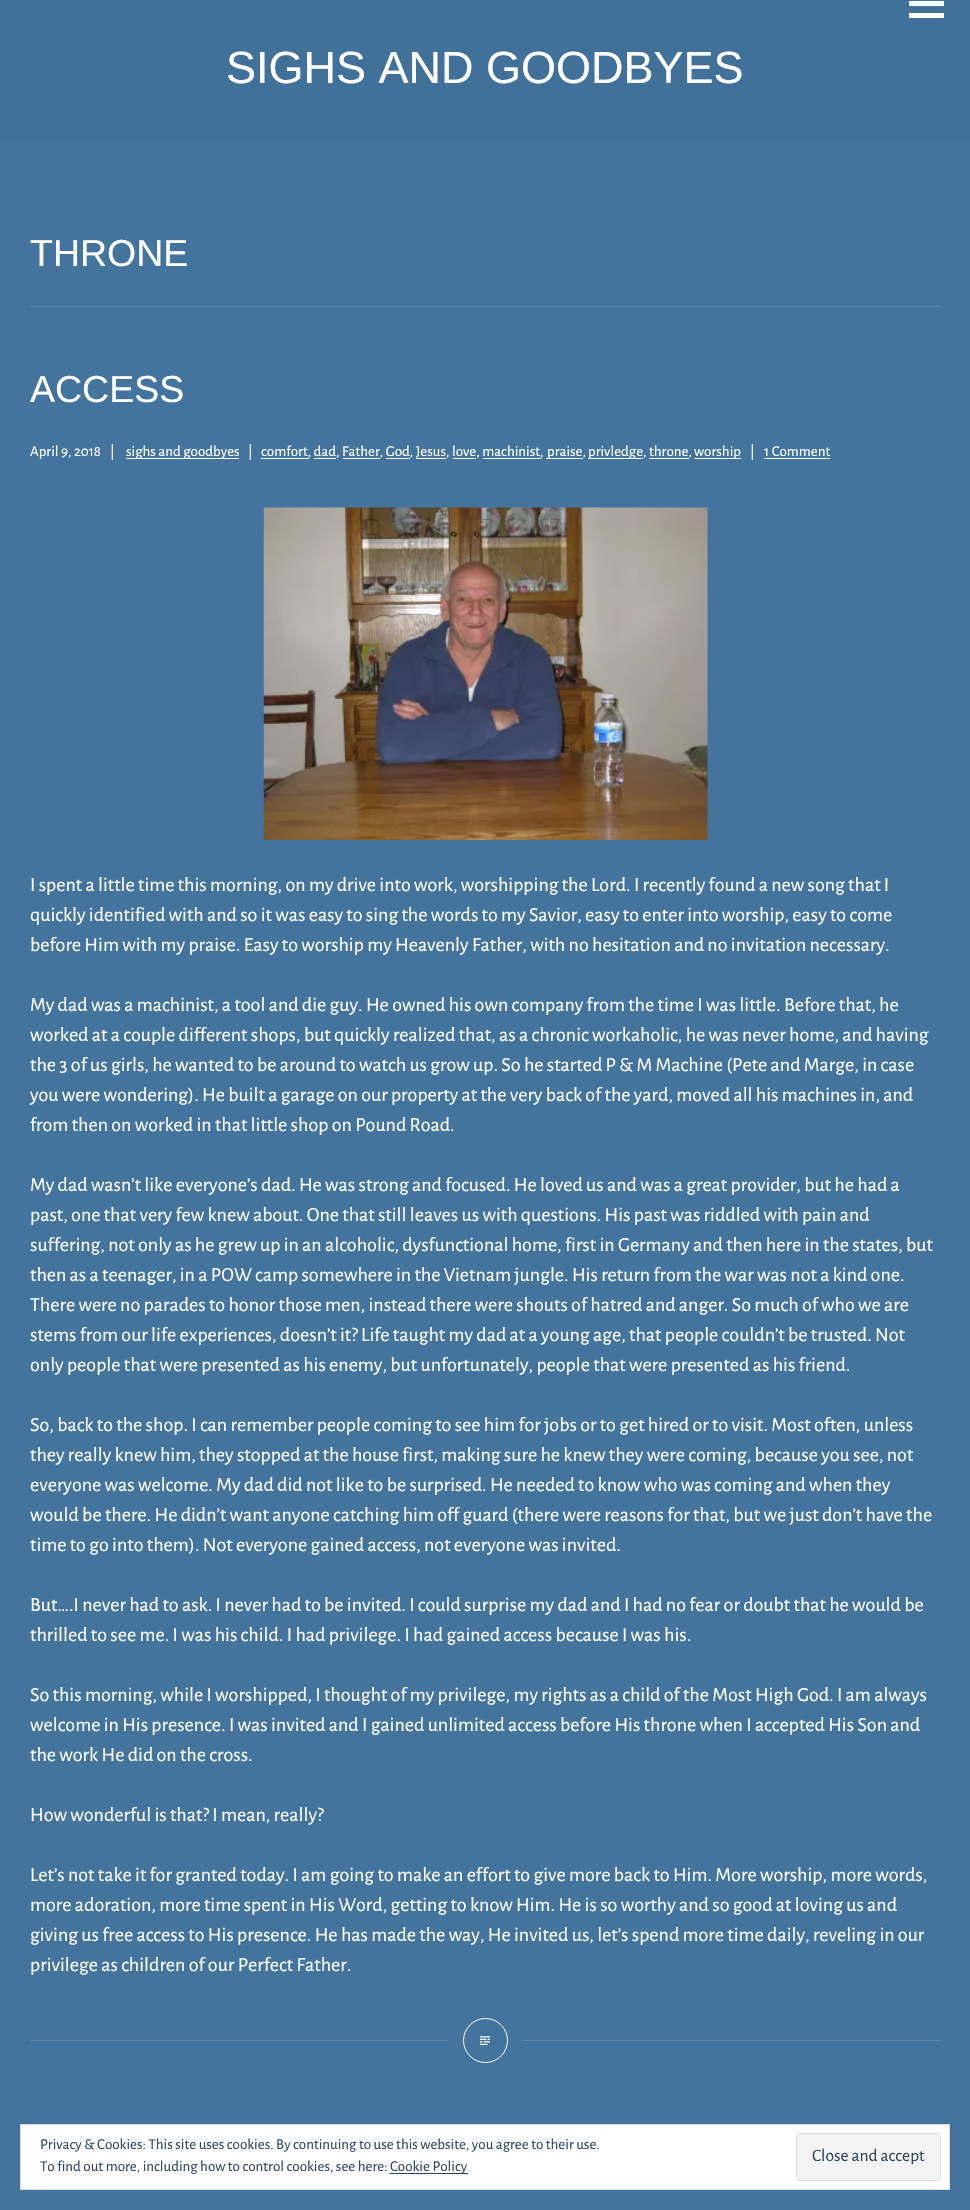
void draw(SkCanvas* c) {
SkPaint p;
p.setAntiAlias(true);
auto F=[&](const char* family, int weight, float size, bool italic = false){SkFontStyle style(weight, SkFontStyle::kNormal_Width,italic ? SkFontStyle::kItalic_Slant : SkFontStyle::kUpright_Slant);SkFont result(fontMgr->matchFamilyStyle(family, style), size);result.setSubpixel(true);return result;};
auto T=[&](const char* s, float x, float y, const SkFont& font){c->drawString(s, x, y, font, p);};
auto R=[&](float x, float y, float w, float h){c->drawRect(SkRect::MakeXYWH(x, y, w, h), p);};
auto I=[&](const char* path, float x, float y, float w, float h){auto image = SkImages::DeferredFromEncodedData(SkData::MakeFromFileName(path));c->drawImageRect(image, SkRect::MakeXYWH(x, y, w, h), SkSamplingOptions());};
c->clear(0xff44749d);
p.setColor(0xff417099);
R(0,0,970,141);
p.setColor(0xffffffff);
R(909,1,35,5);
R(909,13,35,5);
auto f1 = F("Arimo",400,45);
T("SIGHS AND GOODBYES",226,83,f1);
p.setColor(0xff5f86a6);
R(30,306,910,1);
auto f2 = F("Arimo",400,37.5);
p.setColor(0xffffffff);
T("THRONE",30,266,f2);
p.setColor(0xff5f86a6);
R(30,2040,910,1);
p.setColor(0xffffffff);
T("ACCESS",30,402,f2);
auto f3 = F("Alegreya Sans",400,15);
T("April 9, 2018",30,456,f3);
T("|",110,456,f3);
R(126,458,113,1);
T("sighs and goodbyes",126,456,f3);
T("|",248,456,f3);
T("comfort, dad, Father, God, Jesus, love, machinist,",261,456,f3);
R(261,458,48,1);
R(314,458,22,1);
R(343,458,37,1);
R(386,458,24,1);
R(416,458,30,1);
R(453,458,23,1);
R(483,458,58,1);
R(546,458,37,1);
T("praise,",547,456,f3);
R(588,458,55,1);
T("privledge, throne,",588,456,f3);
R(649,458,40,1);
R(694,458,47,1);
T("worship",694,456,f3);
T("|",750,456,f3);
T("1 Comment",764,456,f3);
R(764,458,66,1);
I("1.png",263,507,445,333);
auto f4 = F("Alegreya Sans",400,20);
T("I spent a little time this morning, on my drive into work, worshipping the Lord. I recently found a new song that I",30,891,f4);
T("quickly identified with and so it was easy to sing the words to my Savior, easy to enter into worship, easy to come",30,921,f4);
T("before Him with my praise. Easy to worship my Heavenly Father, with no hesitation and no invitation necessary.",30,951,f4);
T("My dad was a machinist, a tool and die guy. He owned his own company from the time I was little. Before that, he",30,1011,f4);
T("worked at a couple different shops, but quickly realized that, as a chronic workaholic, he was never home, and having",30,1041,f4);
T("the 3 of us girls, he wanted to be around to watch us grow up. So he started P & M Machine (Pete and Marge, in case",30,1071,f4);
T("you were wondering). He built a garage on our property at the very back of the yard, moved all his machines in, and",30,1101,f4);
T("from then on worked in that little shop on Pound Road.",30,1131,f4);
T("My dad wasn’t like everyone’s dad. He was strong and focused. He loved us and was a great provider, but he had a",30,1191,f4);
T("past, one that very few knew about. One that still leaves us with questions. His past was riddled with pain and",30,1221,f4);
T("suffering, not only as he grew up in an alcoholic, dysfunctional home, first in Germany and then here in the states, but",30,1251,f4);
T("then as a teenager, in a POW camp somewhere in the Vietnam jungle. His return from the war was not a kind one.",30,1281,f4);
T("There were no parades to honor those men, instead there were shouts of hatred and anger. So much of who we are",30,1311,f4);
T("stems from our life experiences, doesn’t it? Life taught my dad at a young age, that people couldn’t be trusted. Not",30,1341,f4);
T("only people that were presented as his enemy, but unfortunately, people that were presented as his friend.",30,1371,f4);
T("So, back to the shop. I can remember people coming to see him for jobs or to get hired or to visit. Most often, unless",30,1431,f4);
T("they really knew him, they stopped at the house first, making sure he knew they were coming, because you see, not",30,1461,f4);
T("everyone was welcome. My dad did not like to be surprised. He needed to know who was coming and when they",30,1491,f4);
T("would be there. He didn’t want anyone catching him off guard (there were reasons for that, but we just don’t have the",30,1521,f4);
T("time to go into them). Not everyone gained access, not everyone was invited.",30,1551,f4);
T("But….I never had to ask. I never had to be invited. I could surprise my dad and I had no fear or doubt that he would be",30,1611,f4);
T("thrilled to see me. I was his child. I had privilege. I had gained access because I was his.",30,1641,f4);
T("So this morning, while I worshipped, I thought of my privilege, my rights as a child of the Most High God. I am always",30,1701,f4);
T("welcome in His presence. I was invited and I gained unlimited access before His throne when I accepted His Son and",30,1731,f4);
T("the work He did on the cross.",30,1761,f4);
T("How wonderful is that? I mean, really?",30,1821,f4);
T("Let’s not take it for granted today. I am going to make an effort to give more back to Him. More worship, more words,",30,1881,f4);
T("more adoration, more time spent in His Word, getting to know Him. He is so worthy and so good at loving us and",30,1911,f4);
T("giving us free access to His presence. He has made the way, He invited us, let’s spend more time daily, reveling in our",30,1941,f4);
T("privilege as children of our Perfect Father.",30,1971,f4);
p.setColor(0xff44749d);
R(448,2040,75,1);
p.setStroke(true);
p.setStrokeWidth(1);
p.setColor(0xffffffff);
c->drawCircle(485.5,2040.5,22,p);
I("2.png",480,2036,10,9);
p.setStroke(false);
c->drawRect(SkRect::MakeXYWH(20.5,2124.5,929,65),p);
p.setStroke(true);
p.setColor(0xffdedede);
c->drawRect(SkRect::MakeXYWH(20.5,2124.5,929,65),p);
p.setStroke(false);
p.setColor(0xff2e4467);
T("Privacy & Cookies: This site uses cookies. By continuing to use this website, you agree to their use.",40,2149,f3);
p.setColor(0xfff3f3f3);
c->drawRoundRect(SkRect::MakeXYWH(796.5,2133.5,144,47),3.5,3.5,p);
p.setStroke(true);
p.setColor(0xffdedede);
c->drawRoundRect(SkRect::MakeXYWH(796.5,2133.5,144,47),3.5,3.5,p);
auto f5 = F("Alegreya Sans",400,17.5);
p.setStroke(false);
p.setColor(0xff2e4453);
T("Close and accept",812,2161,f5);
p.setColor(0xff2e4467);
T("To find out more, including how to control cookies, see here:",40,2171,f3);
R(390,2173,78,1);
T("Cookie Policy",390,2171,f3);
}
